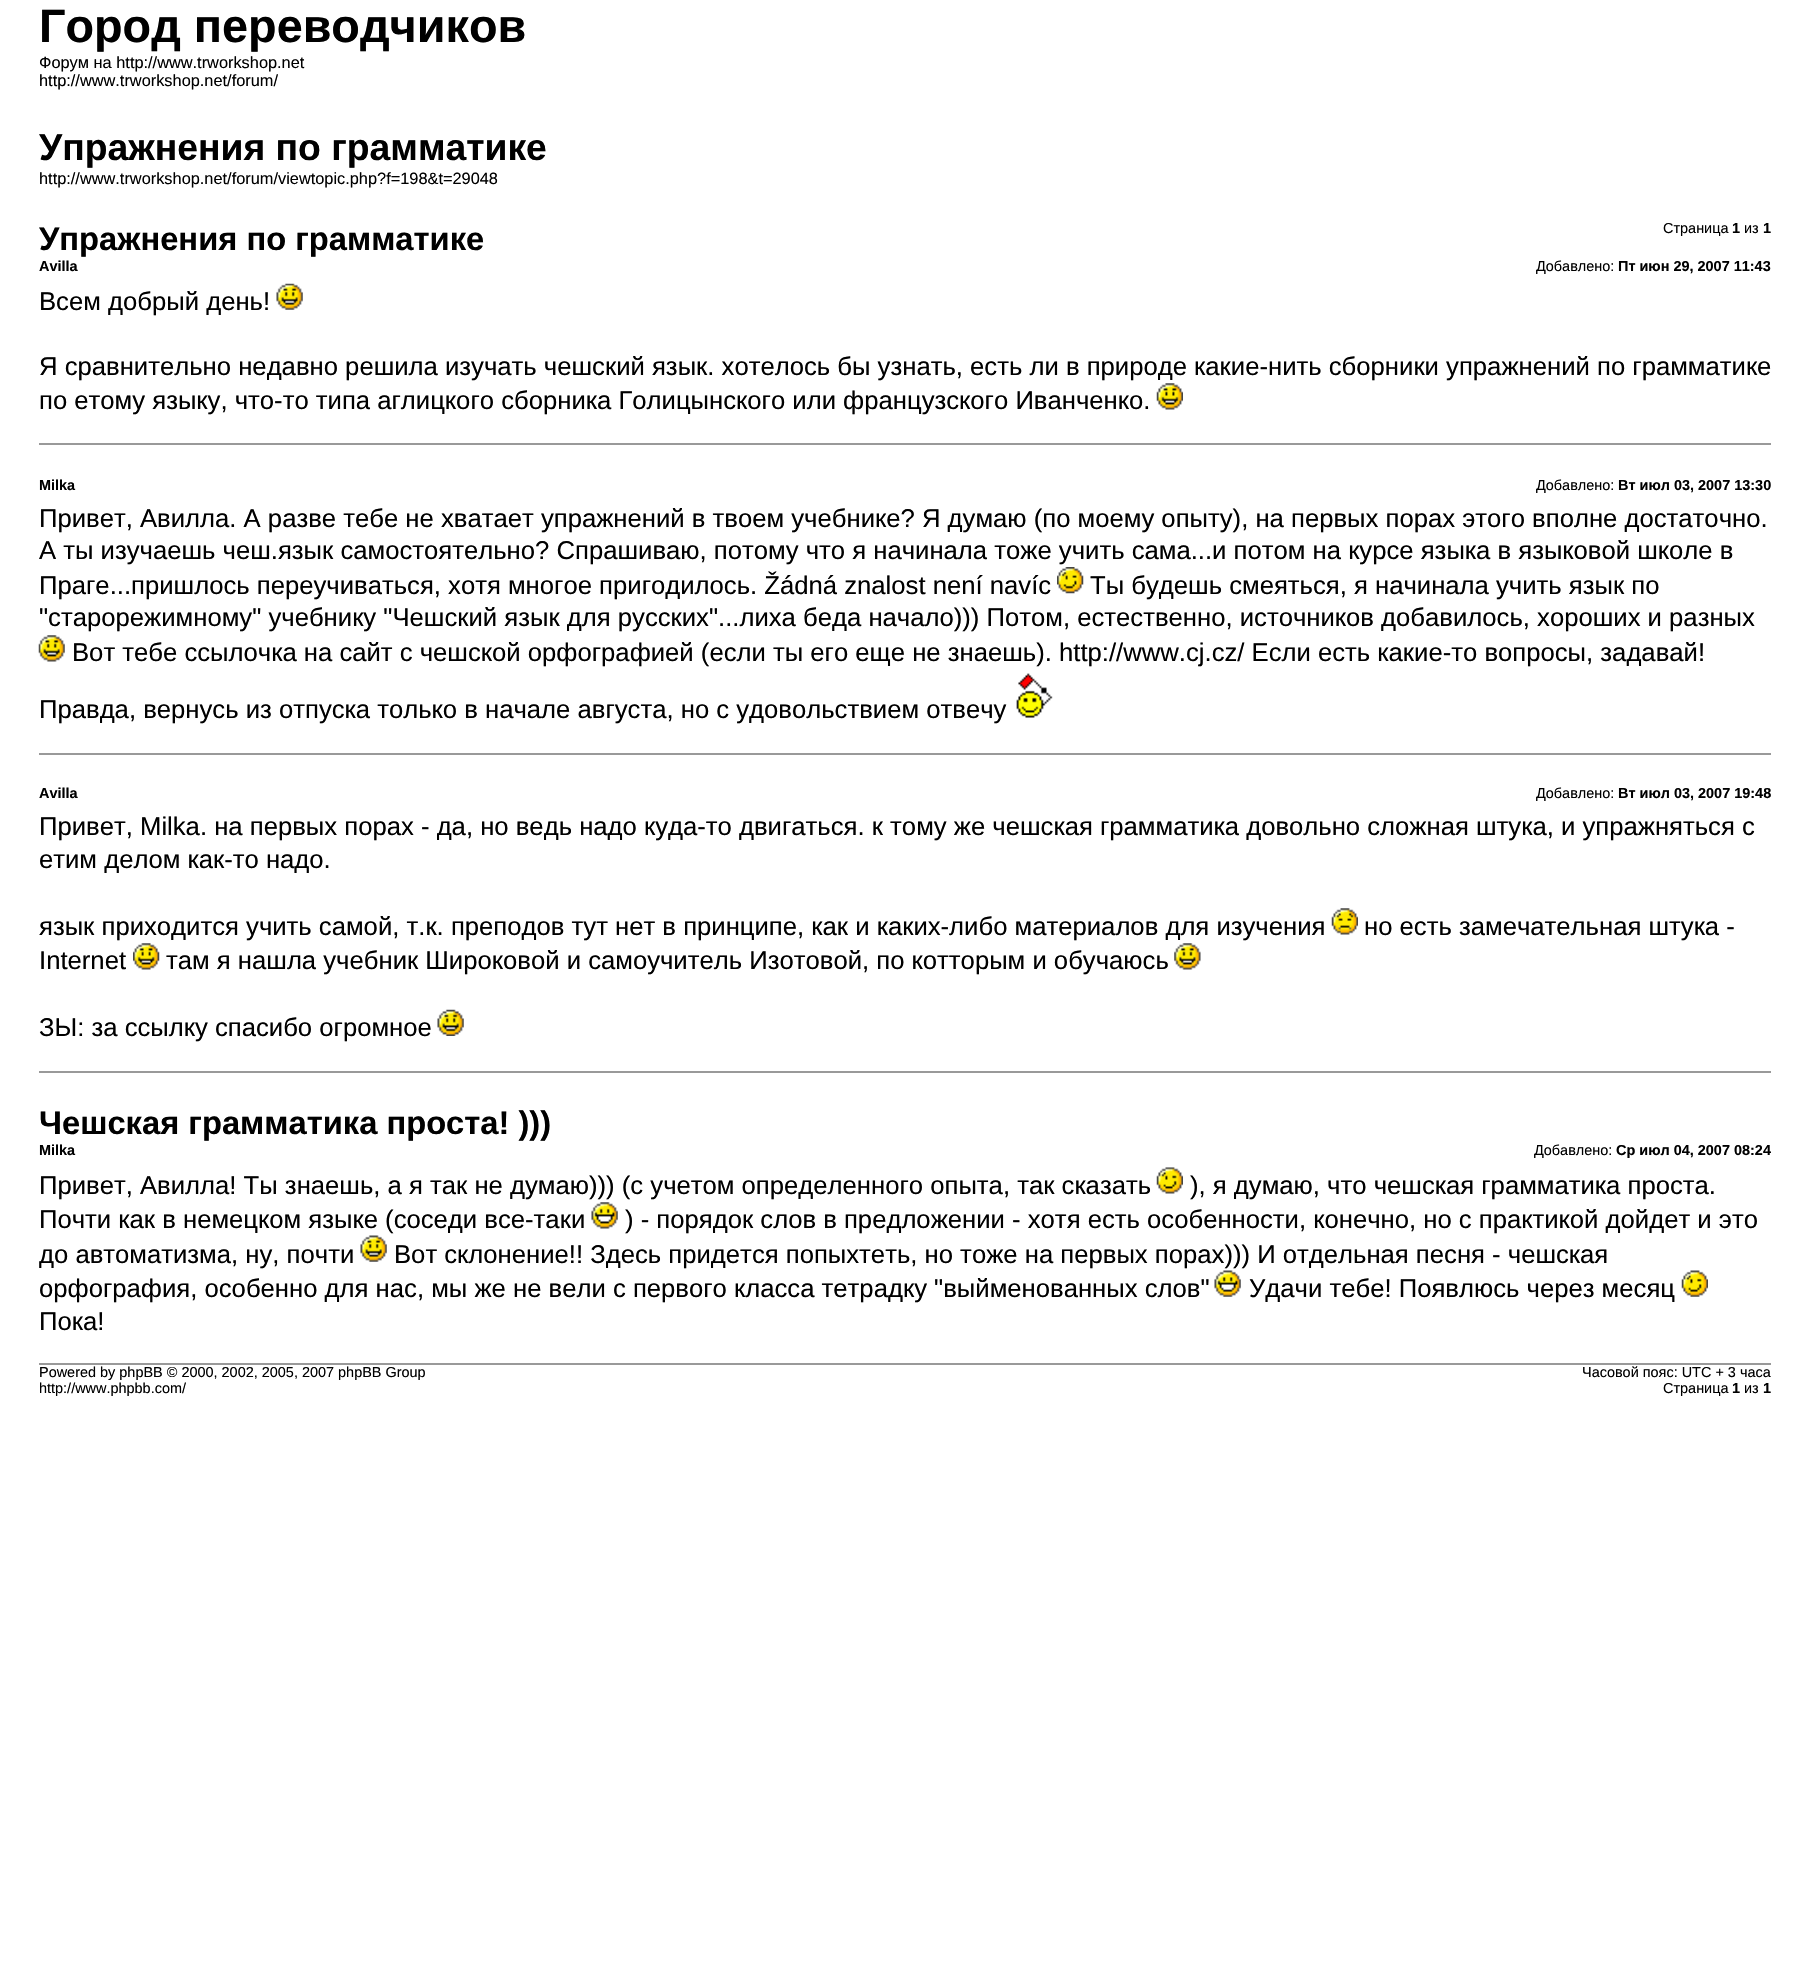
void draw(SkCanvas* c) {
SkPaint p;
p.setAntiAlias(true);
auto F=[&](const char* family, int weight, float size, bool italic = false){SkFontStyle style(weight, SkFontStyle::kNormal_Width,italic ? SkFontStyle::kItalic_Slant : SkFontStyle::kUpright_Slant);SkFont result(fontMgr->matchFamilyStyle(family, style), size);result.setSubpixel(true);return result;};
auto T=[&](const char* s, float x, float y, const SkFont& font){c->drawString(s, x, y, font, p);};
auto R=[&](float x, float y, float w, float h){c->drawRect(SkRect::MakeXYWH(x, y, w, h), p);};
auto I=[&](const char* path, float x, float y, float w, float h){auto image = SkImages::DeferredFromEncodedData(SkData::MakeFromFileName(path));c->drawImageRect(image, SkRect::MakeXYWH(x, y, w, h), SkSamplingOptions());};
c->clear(0xffffffff);
auto f1 = F("Liberation Sans",700,46.75);
p.setColor(0xff000000);
T("Город переводчиков",39,42,f1);
auto f2 = F("Liberation Sans",400,16.35);
T("Форум на http://www.trworkshop.net",39,68,f2);
T("http://www.trworkshop.net/forum/",39,86,f2);
auto f3 = F("Liberation Sans",700,37.3);
T("Упражнения по грамматике",39,160,f3);
T("http://www.trworkshop.net/forum/viewtopic.php?f=198&t=29048",39,184,f2);
auto f4 = F("Liberation Sans",400,14.45);
T("Страница",1663,233,f4);
auto f5 = F("Liberation Sans",700,14.45);
T("1",1732,233,f5);
T("из",1744,233,f4);
T("1",1763,233,f5);
auto f6 = F("Liberation Sans",700,32.7);
T("Упражнения по грамматике",39,250,f6);
T("Avilla",39,271,f5);
T("Добавлено:",1536,271,f4);
T("Пт июн 29, 2007 11:43",1618,271,f5);
auto f7 = F("Liberation Sans",400,25.67);
T("Всем добрый день!",39,310,f7);
I("1.png",276,283,27,27);
T("Я сравнительно недавно решила изучать чешский язык. хотелось бы узнать, есть ли в природе какие-нить сборники упражнений по грамматике",39,375,f7);
T("по етому языку, что-то типа аглицкого сборника Голицынского или французского Иванченко.",39,409,f7);
I("2.png",1156,383,27,27);
p.setColor(0xff999999);
R(39,443,1732,2);
p.setColor(0xff000000);
T("Milka",39,490,f5);
T("Добавлено:",1536,490,f4);
T("Вт июл 03, 2007 13:30",1618,490,f5);
T("Привет, Авилла. А разве тебе не хватает упражнений в твоем учебнике? Я думаю (по моему опыту), на первых порах этого вполне достаточно.",39,527,f7);
T("А ты изучаешь чеш.язык самостоятельно? Спрашиваю, потому что я начинала тоже учить сама...и потом на курсе языка в языковой школе в",39,559,f7);
T("Праге...пришлось переучиваться, хотя многое пригодилось. Žádná znalost není navíc",39,594,f7);
I("3.png",1057,567,27,27);
T("Ты будешь смеяться, я начинала учить язык по",1090,594,f7);
T("\"старорежимному\" учебнику \"Чешский язык для русских\"...лиха беда начало))) Потом, естественно, источников добавилось, хороших и разных",39,626,f7);
I("4.png",38,635,27,27);
T("Вот тебе ссылочка на сайт с чешской орфографией (если ты его еще не знаешь). http://www.cj.cz/ Если есть какие-то вопросы, задавай!",72,661,f7);
T("Правда, вернусь из отпуска только в начале августа, но с удовольствием отвечу",39,718,f7);
I("5.png",1016,673,37,45);
p.setColor(0xff999999);
R(39,753,1732,2);
p.setColor(0xff000000);
T("Avilla",39,798,f5);
T("Добавлено:",1536,798,f4);
T("Вт июл 03, 2007 19:48",1618,798,f5);
T("Привет, Milka. на первых порах - да, но ведь надо куда-то двигаться. к тому же чешская грамматика довольно сложная штука, и упражняться с",39,835,f7);
T("етим делом как-то надо.",39,868,f7);
T("язык приходится учить самой, т.к. преподов тут нет в принципе, как и каких-либо материалов для изучения",39,935,f7);
I("6.png",1331,908,27,27);
T("но есть замечательная штука -",1364,935,f7);
T("Internet",39,969,f7);
I("7.png",133,943,27,27);
T("там я нашла учебник Широковой и самоучитель Изотовой, по котторым и обучаюсь",166,969,f7);
I("8.png",1174,943,27,27);
T("ЗЫ: за ссылку спасибо огромное",39,1036,f7);
I("9.png",437,1009,27,27);
p.setColor(0xff999999);
R(39,1071,1732,2);
p.setColor(0xff000000);
T("Чешская грамматика проста! )))",39,1134,f6);
T("Milka",39,1155,f5);
T("Добавлено:",1534,1155,f4);
T("Ср июл 04, 2007 08:24",1616,1155,f5);
T("Привет, Авилла! Ты знаешь, а я так не думаю))) (с учетом определенного опыта, так сказать",39,1194,f7);
I("10.png",1156,1167,27,27);
T("), я думаю, что чешская грамматика проста.",1190,1194,f7);
T("Почти как в немецком языке (соседи все-таки",39,1228,f7);
I("11.png",591,1202,27,27);
T(") - порядок слов в предложении - хотя есть особенности, конечно, но с практикой дойдет и это",625,1228,f7);
c->save();
c->clipRect(SkRect::MakeXYWH(39,1167,1732,170));
T("до автоматизма, ну, почти",39,1263,f7);
c->restore();
I("12.png",360,1235,27,27);
T("Вот склонение!! Здесь придется попыхтеть, но тоже на первых порах))) И отдельная песня - чешская",394,1263,f7);
T("орфография, особенно для нас, мы же не вели с первого класса тетрадку \"выйменованных слов\"",39,1297,f7);
I("13.png",1214,1270,27,27);
T("Удачи тебе! Появлюсь через месяц",1249,1297,f7);
I("14.png",1681,1270,27,27);
T("Пока!",39,1330,f7);
p.setColor(0xff999999);
R(39,1363,1732,2);
p.setColor(0xff000000);
T("Powered by phpBB © 2000, 2002, 2005, 2007 phpBB Group",39,1377,f4);
T("http://www.phpbb.com/",39,1393,f4);
T("Часовой пояс: UTC + 3 часа",1582,1377,f4);
T("Страница",1663,1393,f4);
T("1",1732,1393,f5);
T("из",1744,1393,f4);
T("1",1763,1393,f5);
}
